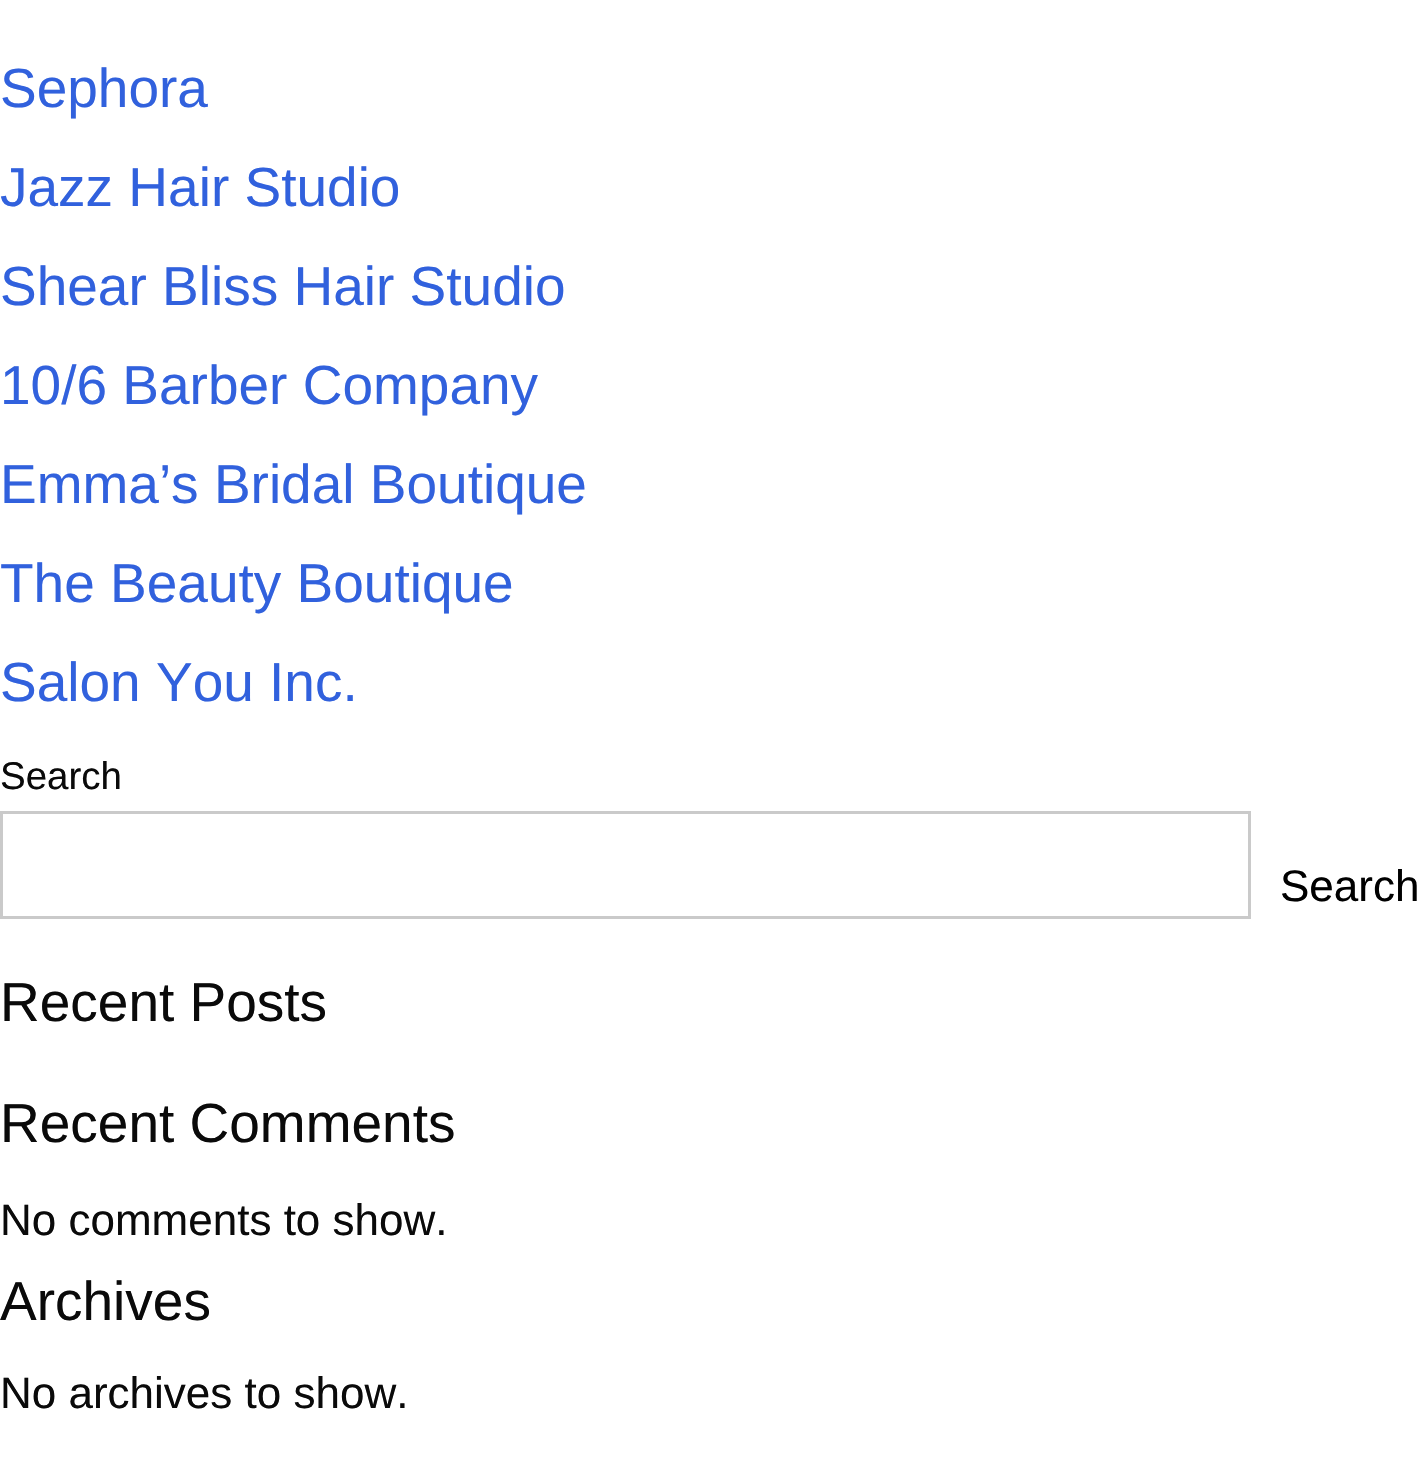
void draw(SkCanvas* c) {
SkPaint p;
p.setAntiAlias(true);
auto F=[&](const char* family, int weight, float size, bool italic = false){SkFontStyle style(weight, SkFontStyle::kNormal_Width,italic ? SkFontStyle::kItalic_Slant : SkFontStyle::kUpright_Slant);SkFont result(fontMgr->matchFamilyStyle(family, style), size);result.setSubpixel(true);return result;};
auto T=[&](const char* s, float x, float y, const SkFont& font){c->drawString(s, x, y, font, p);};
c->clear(0xffffffff);
auto f1 = F("Liberation Sans",400,55);
p.setColor(0xff3161dd);
T("Sephora",0,107,f1);
T("Jazz Hair Studio",0,206,f1);
T("Shear Bliss Hair Studio",0,305,f1);
T("10/6 Barber Company",0,404,f1);
T("Emma’s Bridal Boutique",0,503,f1);
T("The Beauty Boutique",0,602,f1);
T("Salon You Inc.",0,701,f1);
auto f2 = F("Liberation Sans",400,38.5);
p.setColor(0xff0a0a0a);
T("Search",0,789,f2);
p.setStroke(true);
p.setStrokeWidth(3);
p.setColor(0xffcacaca);
c->drawRect(SkRect::MakeXYWH(1.5,812.5,1248,105),p);
auto f3 = F("Liberation Sans",400,44);
p.setStroke(false);
p.setColor(0xff000000);
T("Search",1280,901,f3);
p.setColor(0xff0a0a0a);
T("Recent Posts",0,1021,f1);
T("Recent Comments",0,1142,f1);
T("No comments to show.",0,1235,f3);
T("Archives",0,1320,f1);
T("No archives to show.",0,1408,f3);
}
